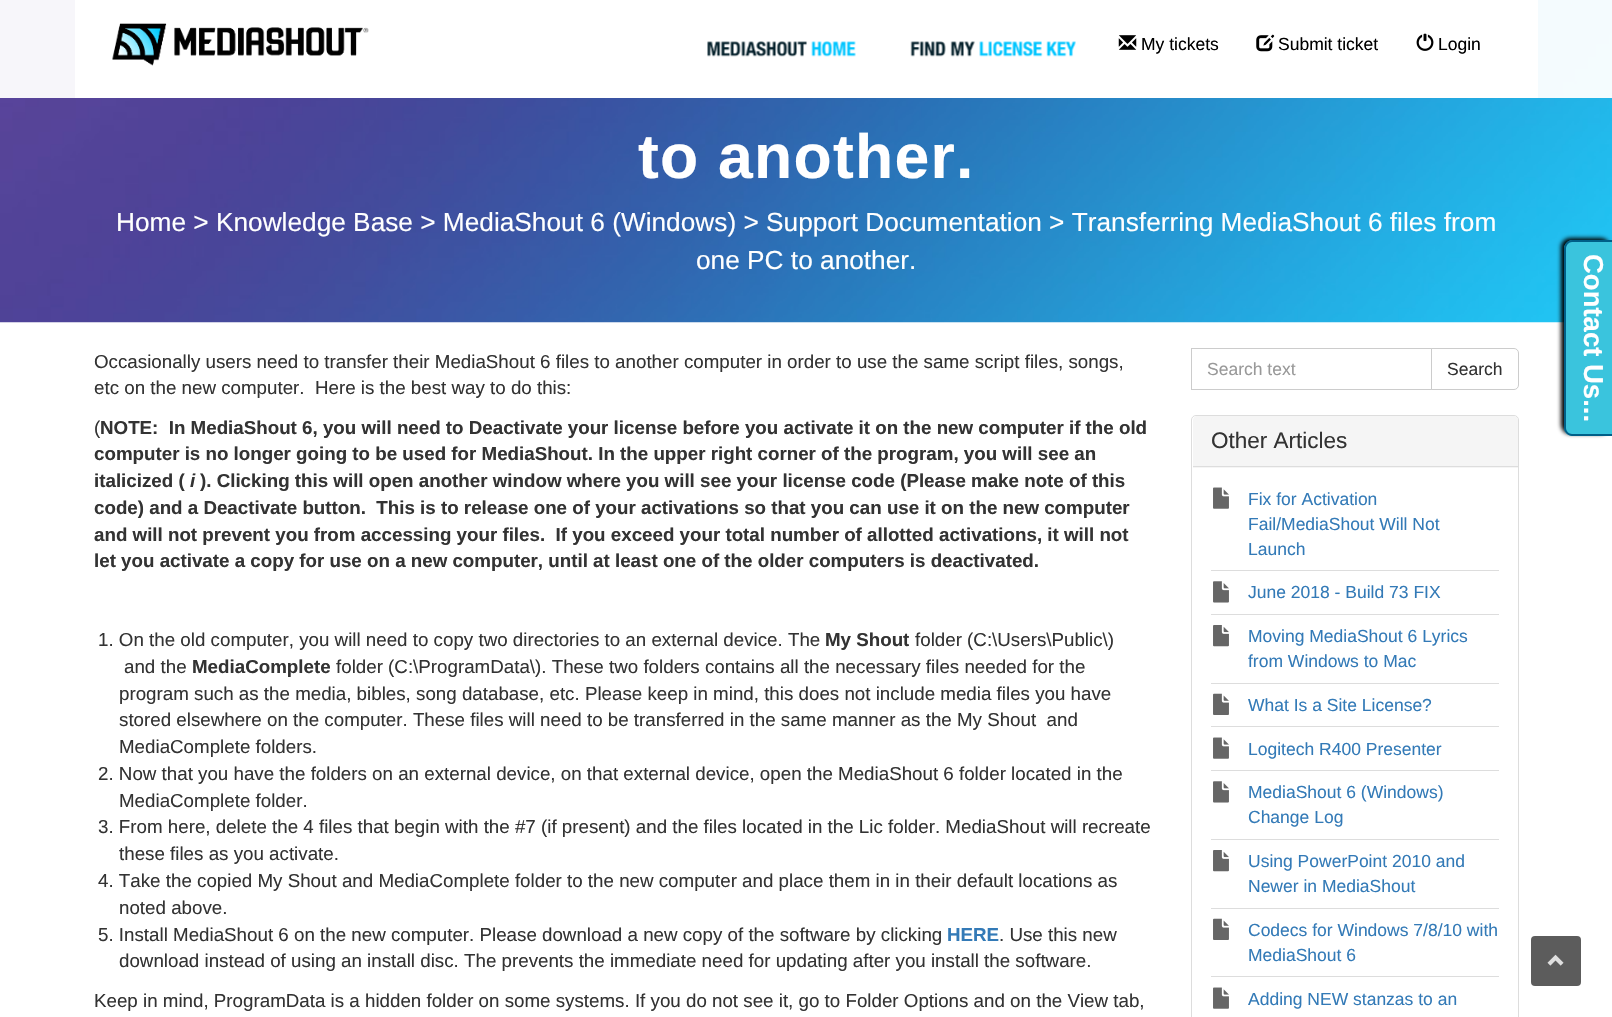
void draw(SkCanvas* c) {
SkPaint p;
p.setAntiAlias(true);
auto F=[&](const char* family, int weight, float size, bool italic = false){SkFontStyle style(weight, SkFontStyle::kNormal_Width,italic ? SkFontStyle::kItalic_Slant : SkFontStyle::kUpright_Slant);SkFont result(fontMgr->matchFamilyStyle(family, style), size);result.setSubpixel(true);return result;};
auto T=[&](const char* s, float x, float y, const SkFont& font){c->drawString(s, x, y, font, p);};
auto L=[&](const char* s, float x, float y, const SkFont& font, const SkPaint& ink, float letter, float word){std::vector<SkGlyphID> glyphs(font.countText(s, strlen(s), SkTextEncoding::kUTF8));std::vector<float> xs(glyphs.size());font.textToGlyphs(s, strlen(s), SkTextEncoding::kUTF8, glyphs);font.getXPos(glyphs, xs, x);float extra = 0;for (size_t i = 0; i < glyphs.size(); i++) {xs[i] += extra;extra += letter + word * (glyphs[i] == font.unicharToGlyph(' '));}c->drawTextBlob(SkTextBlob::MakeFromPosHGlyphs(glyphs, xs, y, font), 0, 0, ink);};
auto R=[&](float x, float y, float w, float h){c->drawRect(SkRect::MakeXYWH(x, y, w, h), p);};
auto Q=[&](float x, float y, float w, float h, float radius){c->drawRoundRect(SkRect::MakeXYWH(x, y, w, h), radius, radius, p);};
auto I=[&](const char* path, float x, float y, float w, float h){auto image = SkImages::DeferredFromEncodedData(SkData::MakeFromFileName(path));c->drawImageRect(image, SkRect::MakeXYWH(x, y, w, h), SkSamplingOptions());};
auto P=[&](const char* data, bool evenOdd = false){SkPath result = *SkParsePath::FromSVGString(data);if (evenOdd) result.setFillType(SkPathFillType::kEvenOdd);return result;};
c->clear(0xffffffff);
I("7.png",0,0,1612,323);
p.setColor(0xf2ffffff);
R(0,0,1612,98);
p.setColor(0xffffffff);
R(75,0,1463,98);
I("1.png",112,23,257,43);
I("2.png",707,41,149,16);
I("3.png",910,41,166,16);
I("4.png",1118,35,19,15);
auto f1 = F("Liberation Sans",400,17.5);
p.setColor(0xff000000);
T("My tickets",1141,50,f1);
I("5.png",1256,34,19,18);
T("Submit ticket",1278,50,f1);
I("6.png",1416,33,18,18);
T("Login",1438,50,f1);
auto f2 = F("Liberation Sans",700,62.5);
p.setColor(0xffffffff);
L("to another.",638,178,f2,p,1.25,0);
auto f3 = F("Liberation Sans",400,26.25);
T("Home > Knowledge Base > MediaShout 6 (Windows) > Support Documentation > Transferring MediaShout 6 files from",116,231,f3);
T("one PC to another.",696,269,f3);
auto f4 = F("Liberation Sans",400,18.75);
p.setColor(0xff333333);
T("Occasionally users need to transfer their MediaShout 6 files to another computer in order to use the same script files, songs,",94,368,f4);
T("etc on the new computer.  Here is the best way to do this:",94,394,f4);
T("(",94,434,f4);
auto f5 = F("Liberation Sans",700,18.75);
T("NOTE:  In MediaShout 6, you will need to Deactivate your license before you activate it on the new computer if the old",100,434,f5);
T("computer is no longer going to be used for MediaShout. In the upper right corner of the program, you will see an",94,460,f5);
T("italicized (",94,487,f5);
auto f6 = F("Liberation Sans",700,18.75,true);
T("i",190,487,f6);
T("). Clicking this will open another window where you will see your license code (Please make note of this",200,487,f5);
T("code) and a Deactivate button.  This is to release one of your activations so that you can use it on the new computer",94,514,f5);
T("and will not prevent you from accessing your files.  If you exceed your total number of allotted activations, it will not",94,541,f5);
T("let you activate a copy for use on a new computer, until at least one of the older computers is deactivated.",94,567,f5);
T("1. On the old computer, you will need to copy two directories to an external device. The",98,646,f4);
T("My Shout",825,646,f5);
T("folder (C:\\Users\\Public\\)",915,646,f4);
T("and the",124,673,f4);
T("MediaComplete",192,673,f5);
T("folder (C:\\ProgramData\\). These two folders contains all the necessary files needed for the",336,673,f4);
T("program such as the media, bibles, song database, etc. Please keep in mind, this does not include media files you have",119,700,f4);
T("stored elsewhere on the computer. These files will need to be transferred in the same manner as the My Shout  and",119,726,f4);
T("MediaComplete folders.",119,753,f4);
T("2. Now that you have the folders on an external device, on that external device, open the MediaShout 6 folder located in the",98,780,f4);
T("MediaComplete folder.",119,807,f4);
T("3. From here, delete the 4 files that begin with the #7 (if present) and the files located in the Lic folder. MediaShout will recreate",98,833,f4);
T("these files as you activate.",119,860,f4);
T("4. Take the copied My Shout and MediaComplete folder to the new computer and place them in in their default locations as",98,887,f4);
T("noted above.",119,914,f4);
T("5. Install MediaShout 6 on the new computer. Please download a new copy of the software by clicking",98,941,f4);
p.setColor(0xff337ab7);
T("HERE",947,941,f5);
p.setColor(0xff333333);
T(". Use this new",999,941,f4);
T("download instead of using an install disc. The prevents the immediate need for updating after you install the software.",119,967,f4);
T("Keep in mind, ProgramData is a hidden folder on some systems. If you do not see it, go to Folder Options and on the View tab,",94,1007,f4);
p.setStroke(true);
p.setStrokeWidth(1);
p.setColor(0xffcccccc);
c->drawRect(SkRect::MakeXYWH(1191.5,348.5,241,41),p);
p.setStroke(false);
p.setColor(0xff999999);
T("Search text",1207,375,f1);
p.setColor(0xffffffff);
c->drawPath(P("M1431.5 348.5h82.5c2.5 0 4.5 2 4.5 4.5v32c0 2.5-2 4.5-4.5 4.5h-82.5z"),p);
p.setStroke(true);
p.setColor(0xffcccccc);
c->drawPath(P("M1431.5 348.5h82.5c2.5 0 4.5 2 4.5 4.5v32c0 2.5-2 4.5-4.5 4.5h-82.5z"),p);
p.setStroke(false);
p.setColor(0xff333333);
T("Search",1447,375,f1);
p.setStroke(true);
p.setColor(0xffdddddd);
c->drawRoundRect(SkRect::MakeXYWH(1191.5,415.5,327,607),4.5,4.5,p);
p.setStroke(false);
p.setColor(0xfff5f5f5);
c->drawPath(P("M1197 416h317c2 0 4 2 4 4v48h-325v-48c0-2 2-4 4-4z"),p);
p.setColor(0xffdddddd);
R(1193,466,325,1);
auto f7 = F("Liberation Sans",400,22.5);
p.setColor(0xff333333);
T("Other Articles",1211,448,f7);
p.setColor(0xffdddddd);
R(1211,570,288,1);
I("8.png",1213,487,16,22);
p.setColor(0xff337ab7);
T("Fix for Activation",1248,505,f1);
T("Fail/MediaShout Will Not",1248,530,f1);
T("Launch",1248,555,f1);
p.setColor(0xffdddddd);
R(1211,614,288,1);
I("9.png",1213,581,16,22);
p.setColor(0xff337ab7);
T("June 2018 - Build 73 FIX",1248,598,f1);
p.setColor(0xffdddddd);
R(1211,683,288,1);
I("10.png",1213,625,16,22);
p.setColor(0xff337ab7);
T("Moving MediaShout 6 Lyrics",1248,642,f1);
T("from Windows to Mac",1248,667,f1);
p.setColor(0xffdddddd);
R(1211,726,288,1);
I("11.png",1213,693,16,22);
p.setColor(0xff337ab7);
T("What Is a Site License?",1248,711,f1);
p.setColor(0xffdddddd);
R(1211,770,288,1);
I("8.png",1213,737,16,22);
p.setColor(0xff337ab7);
T("Logitech R400 Presenter",1248,755,f1);
p.setColor(0xffdddddd);
R(1211,839,288,1);
I("9.png",1213,781,16,22);
p.setColor(0xff337ab7);
T("MediaShout 6 (Windows)",1248,798,f1);
T("Change Log",1248,823,f1);
p.setColor(0xffdddddd);
R(1211,908,288,1);
I("10.png",1213,850,16,22);
p.setColor(0xff337ab7);
T("Using PowerPoint 2010 and",1248,867,f1);
T("Newer in MediaShout",1248,892,f1);
p.setColor(0xffdddddd);
R(1211,976,288,1);
I("11.png",1213,918,16,22);
p.setColor(0xff337ab7);
T("Codecs for Windows 7/8/10 with",1248,936,f1);
T("MediaShout 6",1248,961,f1);
I("8.png",1213,987,16,22);
T("Adding NEW stanzas to an",1248,1005,f1);
p.setColor(0xff000000);
p.setMaskFilter(SkMaskFilter::MakeBlur(kNormal_SkBlurStyle, 2));
c->drawRoundRect(SkRect::MakeXYWH(1561,238,49,196),9,9,p);
p.setMaskFilter(nullptr);
p.setColor(0xff3ac4dd);
c->drawPath(P("M1573 240h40v196h-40c-5 0-9-4-9-9v-178c0-5 4-9 9-9z"),p);
p.setColor(0xff005f88);
c->drawPath(P("M1572 240h40v196h-40c-4 0-8-4-8-8v-179c0-5 4-9 8-9zm0 2h40v192h-40c-3 0-6-3-6-6v-179c0-4 3-7 6-7z",true),p);
auto f8 = F("Liberation Sans",700,27.5);
p.setColor(0xffffffff);
c->save();
c->rotate(90,1584,254);
T("Contact Us...",1584,254,f8);
c->restore();
p.setColor(0xff5c5c5c);
Q(1531,936,50,50,4);
I("12.png",1547,954,17,12);
}
